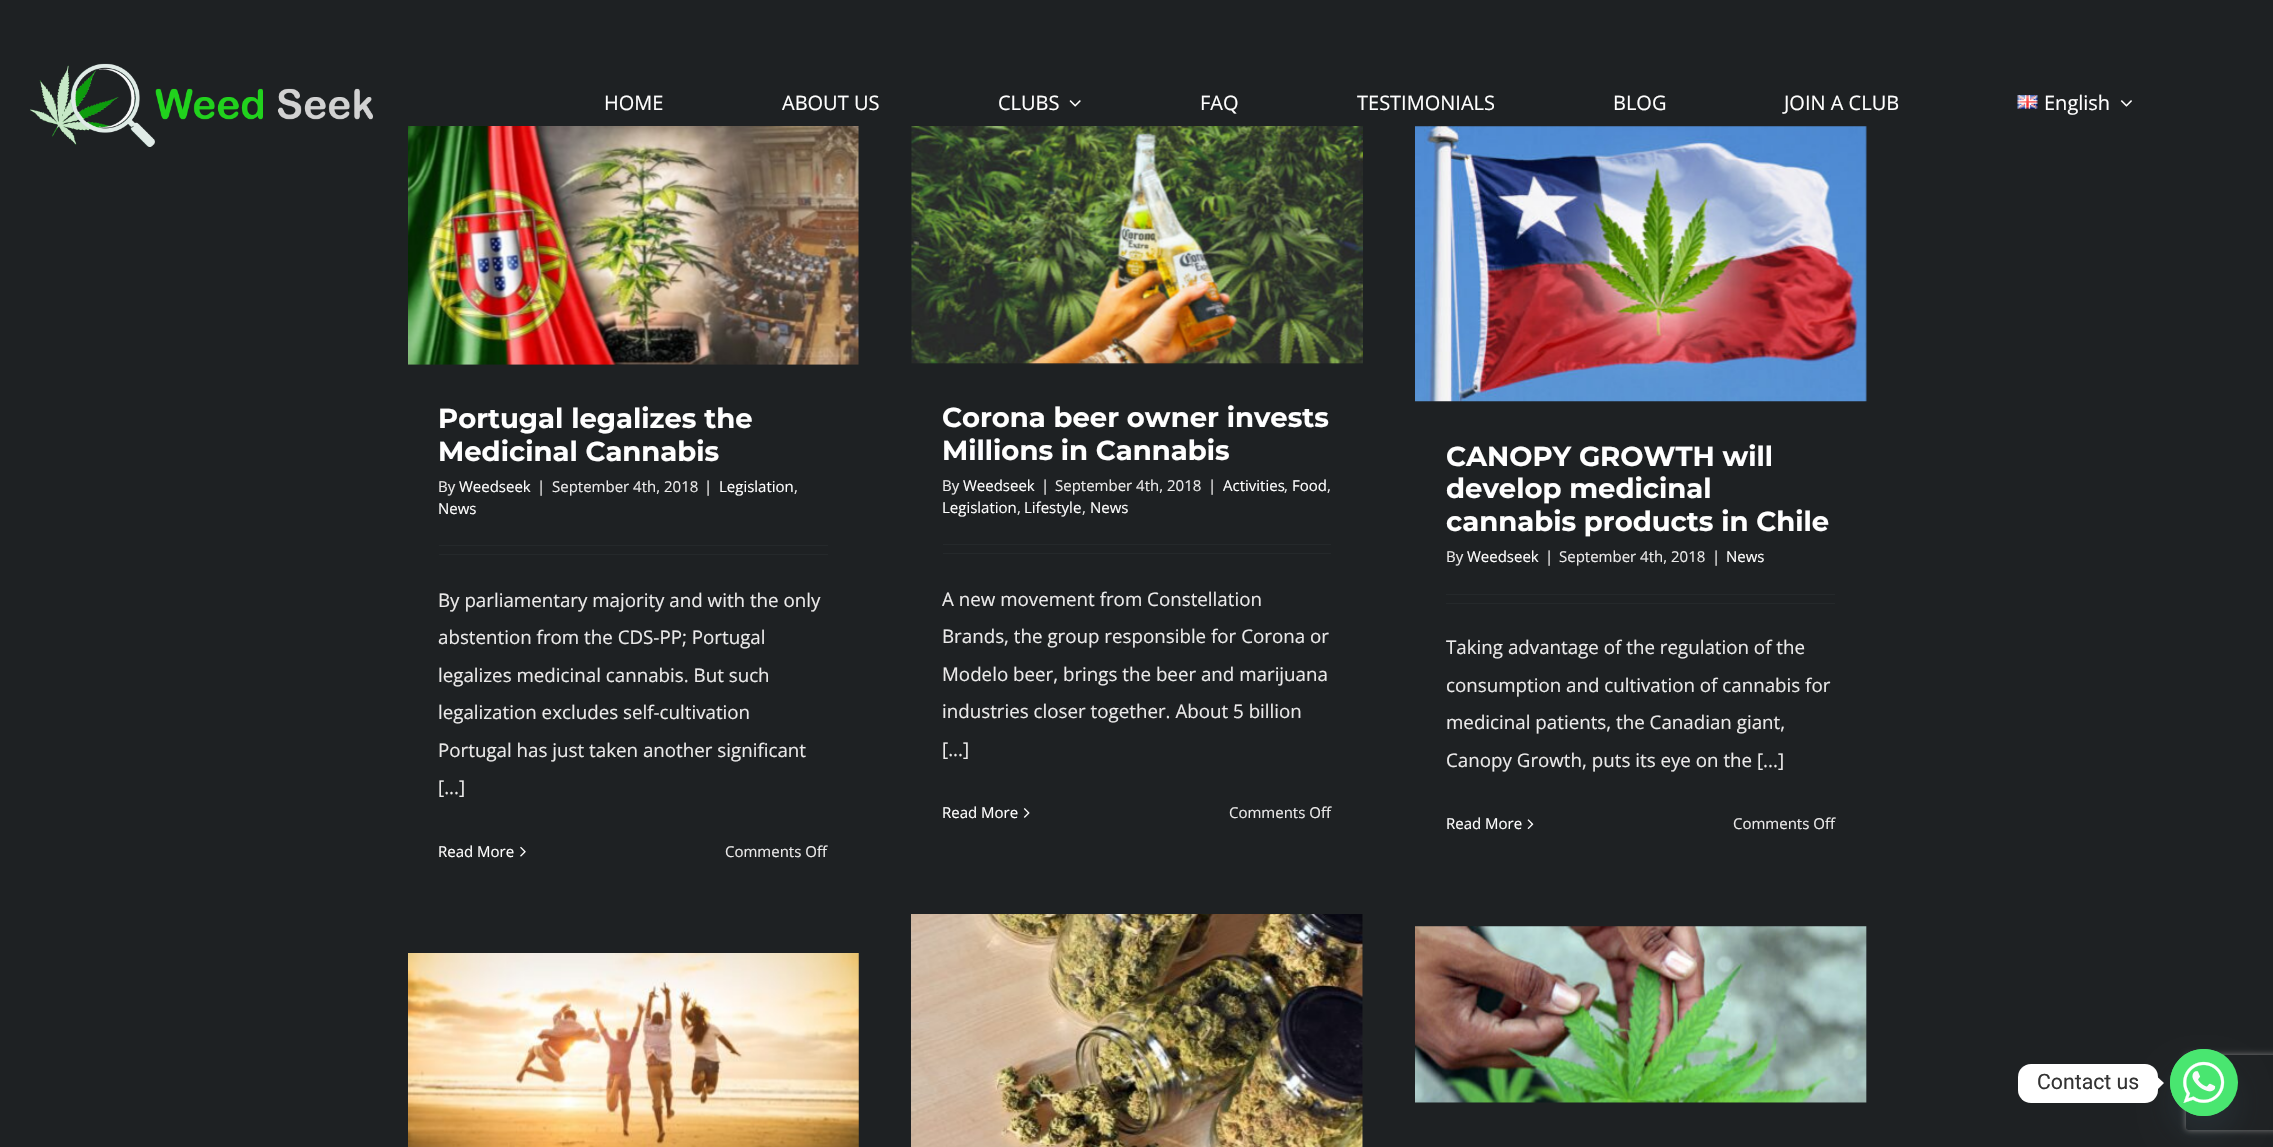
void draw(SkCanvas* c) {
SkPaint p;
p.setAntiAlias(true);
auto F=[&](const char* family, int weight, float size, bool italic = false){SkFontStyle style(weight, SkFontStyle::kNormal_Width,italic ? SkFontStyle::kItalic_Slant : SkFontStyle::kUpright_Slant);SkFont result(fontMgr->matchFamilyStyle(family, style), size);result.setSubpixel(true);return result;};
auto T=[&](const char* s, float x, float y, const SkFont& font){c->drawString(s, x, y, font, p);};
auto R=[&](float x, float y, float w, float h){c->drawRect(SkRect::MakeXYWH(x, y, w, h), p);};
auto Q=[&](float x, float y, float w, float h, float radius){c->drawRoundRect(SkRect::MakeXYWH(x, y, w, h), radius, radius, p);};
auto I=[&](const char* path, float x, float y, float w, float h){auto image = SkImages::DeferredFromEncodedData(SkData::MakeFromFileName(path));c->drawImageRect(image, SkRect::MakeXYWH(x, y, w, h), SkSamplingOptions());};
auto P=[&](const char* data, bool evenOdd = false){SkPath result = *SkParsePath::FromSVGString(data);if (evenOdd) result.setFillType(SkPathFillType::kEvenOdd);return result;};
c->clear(0xff1e2123);
I("1.png",30,63,343,84);
auto f1 = F("Open Sans",400,20);
p.setColor(0xffffffff);
T("HOME",604,110,f1);
T("ABOUT US",782,110,f1);
T("CLUBS",998,110,f1);
I("2.png",1069,100,12,7);
T("FAQ",1200,110,f1);
T("TESTIMONIALS",1357,110,f1);
T("BLOG",1613,110,f1);
T("JOIN A CLUB",1784,110,f1);
I("3.png",2017,95,21,14);
T("English",2044,110,f1);
I("4.png",2120,100,12,7);
I("5.png",408,126,451,239);
auto f2 = F("Montserrat",700,27.5);
T("Portugal legalizes the",438,428,f2);
T("Medicinal Cannabis",438,461,f2);
auto f3 = F("Open Sans",400,15);
p.setColor(0xffebeaea);
T("By",438,492,f3);
p.setColor(0xffffffff);
T("Weedseek",459,492,f3);
p.setColor(0xffebeaea);
T("|",537,492,f3);
T("September 4th, 2018",552,492,f3);
T("|",704,492,f3);
p.setColor(0xffffffff);
T("Legislation",719,492,f3);
p.setColor(0xffebeaea);
T(",",794,492,f3);
p.setColor(0xffffffff);
T("News",438,514,f3);
p.setColor(0xff25292b);
R(439,545,389,1);
R(439,554,389,1);
auto f4 = F("Open Sans",400,18.75);
p.setColor(0xffebeaea);
T("By parliamentary majority and with the only",438,607,f4);
T("abstention from the CDS-PP; Portugal",438,644,f4);
T("legalizes medicinal cannabis. But such",438,682,f4);
T("legalization excludes self-cultivation",438,719,f4);
T("Portugal has just taken another significant",438,757,f4);
T("[...]",438,794,f4);
p.setColor(0xffffffff);
T("Read More",438,857,f3);
I("6.png",520,846,6,11);
p.setColor(0xffebeaea);
T("Comments Off",725,857,f3);
I("7.png",911,126,452,239);
p.setColor(0xffffffff);
T("Corona beer owner invests",942,427,f2);
T("Millions in Cannabis",942,460,f2);
p.setColor(0xffebeaea);
T("By",942,491,f3);
p.setColor(0xffffffff);
T("Weedseek",963,491,f3);
p.setColor(0xffebeaea);
T("|",1041,491,f3);
T("September 4th, 2018",1055,491,f3);
T("|",1208,491,f3);
p.setColor(0xffffffff);
T("Activities",1223,491,f3);
p.setColor(0xffebeaea);
T(",",1284,491,f3);
p.setColor(0xffffffff);
T("Food",1292,491,f3);
p.setColor(0xffebeaea);
T(",",1327,491,f3);
p.setColor(0xffffffff);
T("Legislation",942,513,f3);
p.setColor(0xffebeaea);
T(",",1017,513,f3);
p.setColor(0xffffffff);
T("Lifestyle",1024,513,f3);
p.setColor(0xffebeaea);
T(",",1082,513,f3);
p.setColor(0xffffffff);
T("News",1090,513,f3);
p.setColor(0xff25292b);
R(943,544,388,1);
R(943,553,388,1);
p.setColor(0xffebeaea);
T("A new movement from Constellation",942,606,f4);
T("Brands, the group responsible for Corona or",942,643,f4);
T("Modelo beer, brings the beer and marijuana",942,681,f4);
T("industries closer together. About 5 billion",942,718,f4);
T("[...]",942,756,f4);
p.setColor(0xffffffff);
T("Read More",942,818,f3);
I("8.png",1023,808,7,10);
p.setColor(0xffebeaea);
T("Comments Off",1229,818,f3);
I("9.png",1415,126,452,276);
p.setColor(0xffffffff);
T("CANOPY GROWTH will",1446,466,f2);
T("develop medicinal",1446,498,f2);
T("cannabis products in Chile",1446,531,f2);
p.setColor(0xffebeaea);
T("By",1446,562,f3);
p.setColor(0xffffffff);
T("Weedseek",1467,562,f3);
p.setColor(0xffebeaea);
T("|",1545,562,f3);
T("September 4th, 2018",1559,562,f3);
T("|",1712,562,f3);
p.setColor(0xffffffff);
T("News",1726,562,f3);
p.setColor(0xff25292b);
R(1446,594,389,1);
R(1446,603,389,1);
p.setColor(0xffebeaea);
T("Taking advantage of the regulation of the",1446,654,f4);
T("consumption and cultivation of cannabis for",1446,692,f4);
T("medicinal patients, the Canadian giant,",1446,729,f4);
T("Canopy Growth, puts its eye on the [...]",1446,767,f4);
p.setColor(0xffffffff);
T("Read More",1446,829,f3);
I("10.png",1527,819,7,10);
p.setColor(0xffebeaea);
T("Comments Off",1733,829,f3);
I("11.png",408,953,451,194);
I("12.png",911,914,452,233);
I("13.png",1415,926,452,177);
p.setColor(0x2949687e);
p.setMaskFilter(SkMaskFilter::MakeBlur(kNormal_SkBlurStyle, 15));
c->drawRoundRect(SkRect::MakeXYWH(2170,1069,68,67),33.5,33.5,p);
p.setMaskFilter(nullptr);
p.setColor(0xffffffff);
Q(2018,1064,140,39,13);
auto f5 = F("Roboto",400,21.25);
p.setColor(0xff333333);
T("Contact us",2037,1089,f5);
p.setColor(0xffffffff);
c->drawPath(P("M2157.5 1089.5v-12.5l6.5 6z"),p);
c->save();
c->clipPath(P("M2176 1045h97v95h-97zm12.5 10h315c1.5 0 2.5 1 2.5 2.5v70c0 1.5-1 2.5-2.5 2.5h-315c-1.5 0-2.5-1-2.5-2.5v-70c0-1.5 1-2.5 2.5-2.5z",true),true);
p.setColor(0xff808080);
p.setMaskFilter(SkMaskFilter::MakeBlur(kNormal_SkBlurStyle, 3));
c->drawRoundRect(SkRect::MakeXYWH(2186,1055,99,75),2.5,2.5,p);
p.setMaskFilter(nullptr);
c->restore();
p.setColor(0xff49e670);
Q(2170,1049,68,67,33.5);
I("14.png",2170,1049,55,67);
}
